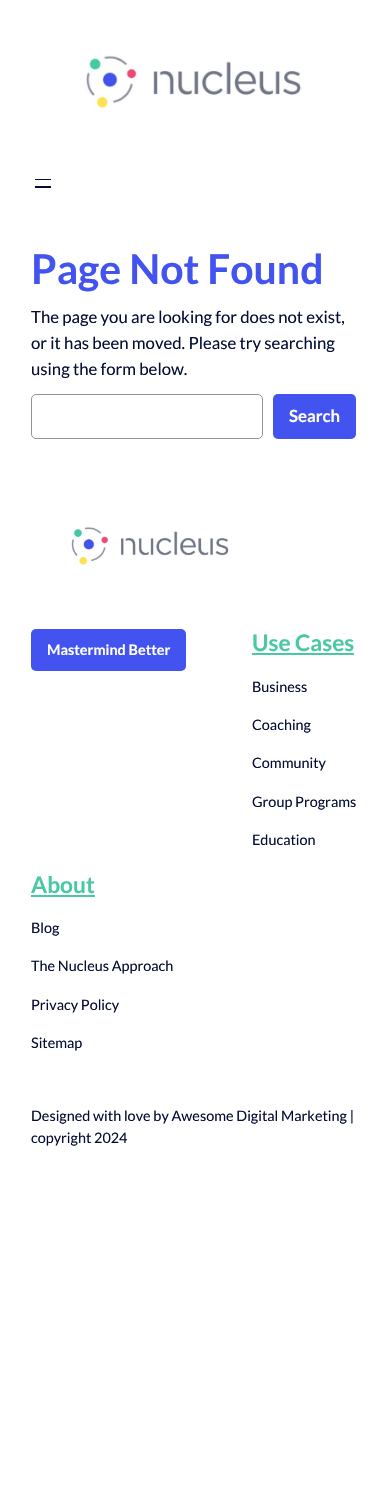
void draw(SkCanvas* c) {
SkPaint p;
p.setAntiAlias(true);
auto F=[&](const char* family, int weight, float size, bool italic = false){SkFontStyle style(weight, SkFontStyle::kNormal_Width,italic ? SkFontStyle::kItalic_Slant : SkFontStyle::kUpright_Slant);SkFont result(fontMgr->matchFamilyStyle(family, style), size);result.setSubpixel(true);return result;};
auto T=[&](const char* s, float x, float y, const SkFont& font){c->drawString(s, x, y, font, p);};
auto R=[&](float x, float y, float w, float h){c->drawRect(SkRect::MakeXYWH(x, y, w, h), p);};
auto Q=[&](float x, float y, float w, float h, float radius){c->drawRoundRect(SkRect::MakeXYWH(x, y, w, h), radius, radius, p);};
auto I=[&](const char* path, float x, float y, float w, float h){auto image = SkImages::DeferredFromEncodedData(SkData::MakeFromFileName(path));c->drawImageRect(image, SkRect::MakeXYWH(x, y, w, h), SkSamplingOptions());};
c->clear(0xffffffff);
I("1.png",85,54,216,55);
p.setColor(0xff040d34);
R(35,179,16,1);
R(35,186,16,2);
auto f1 = F("Lato",700,41);
p.setColor(0xff4253ef);
T("Page Not Found",31,284,f1);
auto f2 = F("Lato",400,16.75);
p.setColor(0xff040d34);
T("The page you are looking for does not exist,",31,323,f2);
T("or it has been moved. Please try searching",31,349,f2);
T("using the form below.",31,375,f2);
p.setStroke(true);
p.setStrokeWidth(1);
p.setColor(0xff949494);
c->drawRoundRect(SkRect::MakeXYWH(31.5,394.5,231,44),4.5,4.5,p);
p.setStroke(false);
p.setColor(0xff4253ef);
Q(273,394,83,45,5);
auto f3 = F("Lato",700,16.75);
p.setColor(0xffffffff);
T("Search",289,422,f3);
I("2.png",71,527,158,38);
p.setColor(0xff4253ef);
Q(31,629,155,42,5);
auto f4 = F("Lato",700,14.4);
p.setColor(0xffffffff);
T("Mastermind Better",47,655,f4);
auto f5 = F("Lato",700,22.75);
p.setColor(0xff4ac8a3);
T("Use Cases",252,651,f5);
R(252,653,102,2);
auto f6 = F("Lato",400,14.4);
p.setColor(0xff040d34);
T("Business",252,692,f6);
T("Coaching",252,730,f6);
T("Community",252,768,f6);
T("Group Programs",252,807,f6);
T("Education",252,845,f6);
p.setColor(0xff4ac8a3);
T("About",31,893,f5);
R(31,895,64,2);
p.setColor(0xff040d34);
T("Blog",31,933,f6);
T("The Nucleus Approach",31,971,f6);
T("Privacy Policy",31,1010,f6);
T("Sitemap",31,1048,f6);
T("Designed with love by Awesome Digital Marketing |",31,1121,f6);
T("copyright 2024",31,1143,f6);
}
